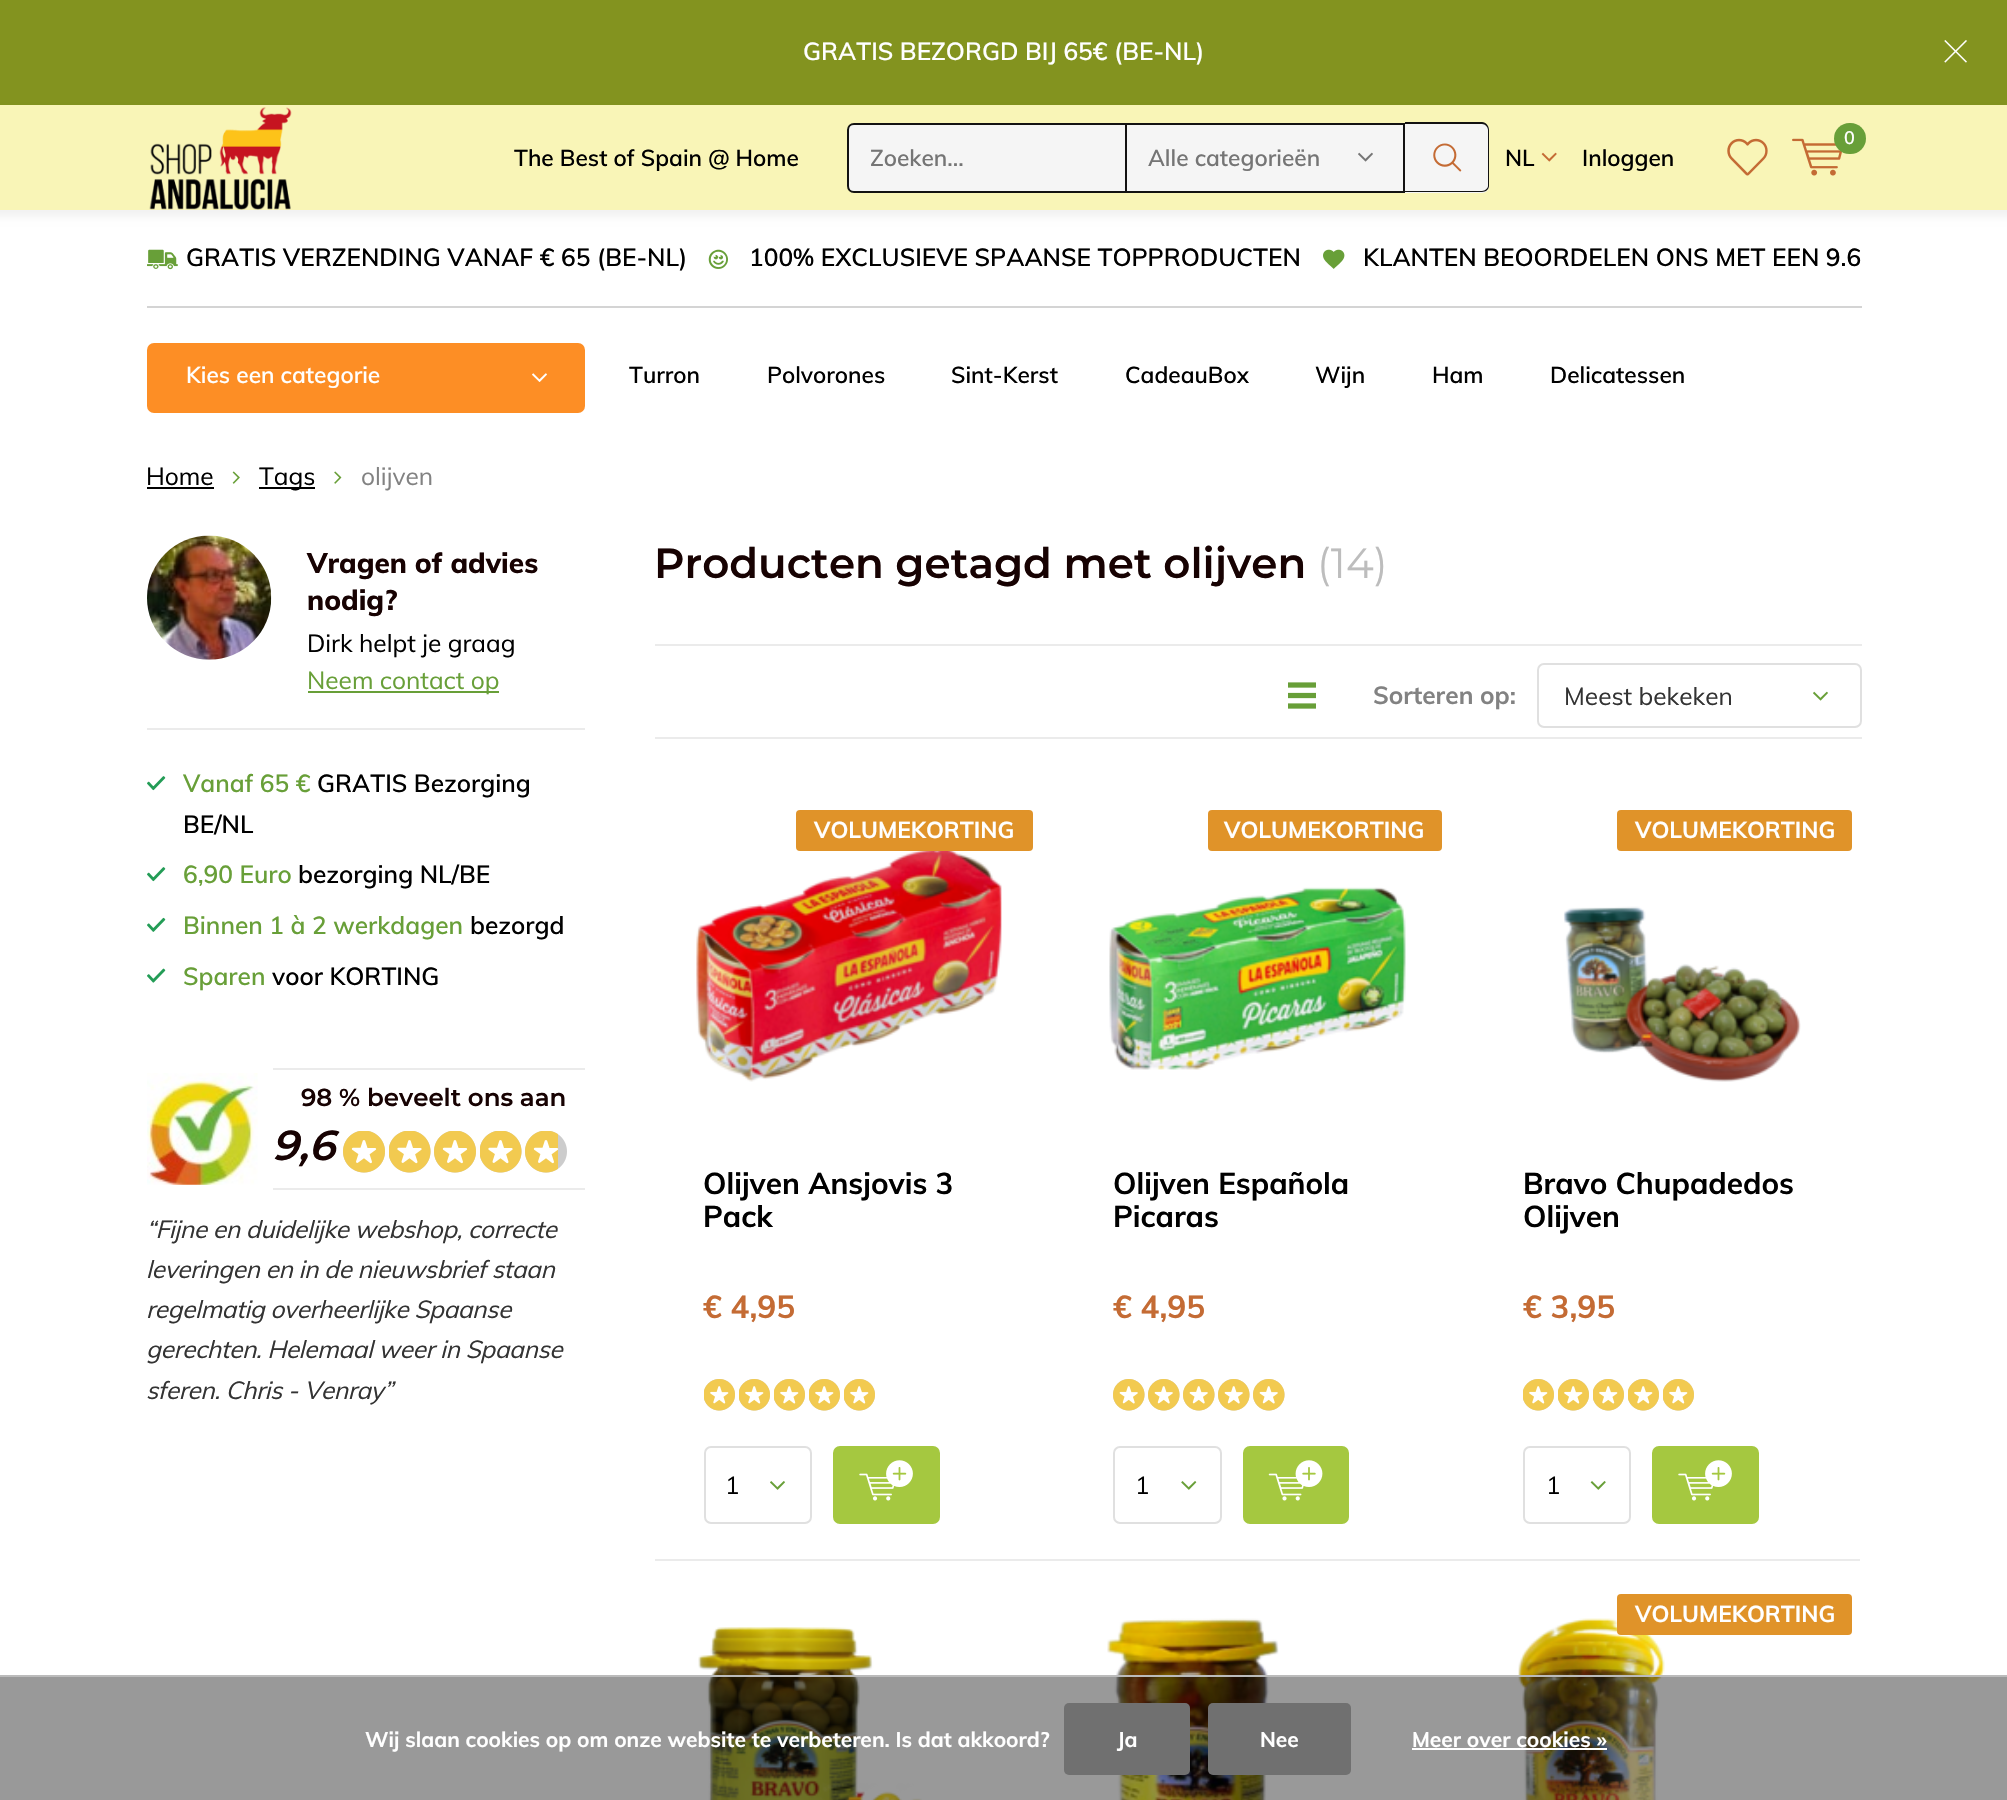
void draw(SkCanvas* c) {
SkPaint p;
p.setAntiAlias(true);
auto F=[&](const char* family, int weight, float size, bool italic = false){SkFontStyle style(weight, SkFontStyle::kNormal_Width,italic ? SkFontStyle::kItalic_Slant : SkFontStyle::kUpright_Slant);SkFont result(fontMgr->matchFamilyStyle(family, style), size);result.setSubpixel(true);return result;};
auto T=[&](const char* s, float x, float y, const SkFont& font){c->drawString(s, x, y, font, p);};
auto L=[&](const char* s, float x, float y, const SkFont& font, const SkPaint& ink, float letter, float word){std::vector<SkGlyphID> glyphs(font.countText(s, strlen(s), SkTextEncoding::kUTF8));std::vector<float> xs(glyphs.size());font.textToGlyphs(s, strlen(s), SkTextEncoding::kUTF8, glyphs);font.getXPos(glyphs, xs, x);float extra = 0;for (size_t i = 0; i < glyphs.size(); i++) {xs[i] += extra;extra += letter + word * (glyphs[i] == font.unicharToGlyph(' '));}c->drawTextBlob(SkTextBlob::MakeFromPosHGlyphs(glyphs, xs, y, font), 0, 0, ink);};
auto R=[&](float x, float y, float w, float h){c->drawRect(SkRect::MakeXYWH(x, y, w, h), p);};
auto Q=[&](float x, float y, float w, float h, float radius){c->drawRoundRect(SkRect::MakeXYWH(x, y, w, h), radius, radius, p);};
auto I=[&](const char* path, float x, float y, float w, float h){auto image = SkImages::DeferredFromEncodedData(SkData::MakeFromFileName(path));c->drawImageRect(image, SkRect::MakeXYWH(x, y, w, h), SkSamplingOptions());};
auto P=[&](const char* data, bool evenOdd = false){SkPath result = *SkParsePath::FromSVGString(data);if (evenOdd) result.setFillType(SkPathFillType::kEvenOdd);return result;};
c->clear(0xffffffff);
p.setColor(0xff83931f);
R(0,0,2007,105);
auto f1 = F("Muli",600,24.5);
p.setColor(0xffffffff);
T("GRATIS BEZORGD BIJ 65€ (BE-NL)",803,60,f1);
I("1.png",1944,40,23,23);
p.setColor(0x0d000000);
p.setMaskFilter(SkMaskFilter::MakeBlur(kNormal_SkBlurStyle, 3.5));
c->drawRect(SkRect::MakeXYWH(-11,112,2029,105),p);
p.setMaskFilter(nullptr);
p.setColor(0xfff9f5b7);
R(0,105,2007,105);
I("2.png",149,107,143,103);
auto f2 = F("Muli",600,22.75);
p.setColor(0xff000000);
T("The Best of Spain @ Home",514,166,f2);
p.setColor(0xfff5f5f5);
c->drawRect(SkRect::MakeXYWH(1126,124,278,68),p);
p.setStroke(true);
p.setStrokeWidth(2);
p.setColor(0xff131212);
c->drawRect(SkRect::MakeXYWH(1126,124,278,68),p);
p.setStroke(false);
p.setColor(0xfff5f5f5);
c->drawPath(P("M854 124h272v68h-272c-3.5 0-6-2.5-6-6v-56c0-3.5 2.5-6 6-6z"),p);
p.setStroke(true);
p.setColor(0xff131212);
c->drawPath(P("M854 124h272v68h-272c-3.5 0-6-2.5-6-6v-56c0-3.5 2.5-6 6-6z"),p);
p.setStroke(false);
p.setColor(0xff757575);
T("Zoeken...",870,166,f2);
T("Alle categorieën",1148,166,f2);
I("3.png",1358,152,15,10);
p.setColor(0xfff5f5f5);
c->drawPath(P("M1405 123h77c4 0 7 3 7 7v56c0 4-3 7-7 7h-77z"),p);
p.setColor(0xff131212);
c->drawPath(P("M1405 122h77c4 0 7 4 7 8v56c0 3-3 6-7 6h-77zm0 2h77c3 0 6 3 6 6v56c0 2-3 5-6 5h-77z",true),p);
I("4.png",1433,143,29,29);
p.setColor(0xff000000);
T("NL",1505,166,f2);
I("5.png",1541,152,16,10);
T("Inloggen",1582,166,f2);
I("6.png",1727,138,41,38);
I("7.png",1792,138,50,38);
p.setColor(0xff689f38);
Q(1834,123,32,31,15.5);
auto f3 = F("Muli",600,18);
p.setColor(0xffffffff);
T("0",1844,144,f3);
p.setColor(0xffd4d4d4);
R(147,306,1715,2);
I("8.png",147,249,31,21);
p.setColor(0xff000000);
T("GRATIS VERZENDING VANAF € 65 (BE-NL)",186,266,f1);
I("9.png",708,249,20,20);
T("100% EXCLUSIEVE SPAANSE TOPPRODUCTEN",749,266,f1);
I("10.png",1323,249,22,20);
T("KLANTEN BEOORDELEN ONS MET EEN 9.6",1363,266,f1);
p.setColor(0xfffd8e25);
Q(147,343,438,70,7);
p.setColor(0xffffffff);
T("Kies een categorie",186,383,f2);
I("11.png",532,373,15,9);
p.setColor(0xff000000);
T("Turron",629,383,f2);
T("Polvorones",767,383,f2);
T("Sint-Kerst",951,383,f2);
T("CadeauBox",1125,383,f2);
T("Wijn",1315,383,f2);
T("Ham",1432,383,f2);
T("Delicatessen",1550,383,f2);
auto f4 = F("Muli",400,24.5);
T("Home",146,485,f4);
R(147,487,67,2);
I("12.png",232,471,8,13);
R(259,487,56,2);
T("Tags",259,485,f4);
I("13.png",334,471,8,13);
p.setColor(0xff828282);
T("olijven",361,485,f4);
p.setColor(0xffebebeb);
R(147,728,438,2);
I("14.png",147,535,125,125);
auto f5 = F("Muli",800,28);
p.setColor(0xff170202);
T("Vragen of advies",307,573,f5);
T("nodig?",307,610,f5);
p.setColor(0xff000000);
T("Dirk helpt je graag",307,652,f4);
p.setColor(0xff689f38);
R(308,691,191,2);
T("Neem contact op",307,689,f4);
I("15.png",147,776,19,15);
T("Vanaf 65 €",183,792,f1);
p.setColor(0xff000000);
T("GRATIS Bezorging",317,792,f1);
T("BE/NL",183,833,f1);
I("15.png",147,867,19,15);
p.setColor(0xff689f38);
T("6,90 Euro",183,883,f1);
p.setColor(0xff000000);
T("bezorging NL/BE",298,883,f1);
I("16.png",147,917,19,15);
p.setColor(0xff689f38);
T("Binnen 1 à 2 werkdagen",183,934,f1);
p.setColor(0xff000000);
T("bezorgd",470,934,f1);
I("17.png",147,968,19,15);
p.setColor(0xff689f38);
T("Sparen",183,985,f1);
p.setColor(0xff000000);
T("voor KORTING",272,985,f1);
p.setColor(0xffebebeb);
R(273,1068,312,2);
R(273,1188,312,2);
auto f6 = F("Montserrat",600,24.5);
p.setColor(0xff170202);
T("98 % beveelt ons aan",301,1106,f6);
I("18.png",343,1131,42,42);
I("19.png",343,1131,42,42);
I("20.png",389,1131,42,42);
I("21.png",389,1131,42,42);
I("18.png",434,1131,42,42);
I("19.png",434,1131,42,42);
I("20.png",480,1131,42,42);
I("21.png",480,1131,42,42);
I("18.png",525,1131,42,42);
I("22.png",525,1131,33,42);
I("23.png",147,1073,111,112);
auto f7 = F("Montserrat",600,42,true);
T("9,6",272,1160,f7);
auto f8 = F("Muli",400,24.5,true);
p.setColor(0xff333333);
L("“Fijne en duidelijke webshop, correcte",146,1238,f8,p,-.35,0);
L("leveringen en in de nieuwsbrief staan",146,1278,f8,p,-.35,0);
L("regelmatig overheerlijke Spaanse",146,1318,f8,p,-.35,0);
L("gerechten. Helemaal weer in Spaanse",146,1358,f8,p,-.35,0);
L("sferen. Chris - Venray”",146,1399,f8,p,-.35,0);
auto f9 = F("Montserrat",600,42);
p.setColor(0xff170202);
T("Producten getagd met olijven",654,578,f9);
auto f10 = F("Montserrat",400,42);
p.setColor(0xffbdbdbd);
T("(14)",1317,578,f10);
p.setColor(0xffebebeb);
R(655,644,1207,2);
R(655,737,1207,2);
I("24.png",1288,682,28,27);
auto f11 = F("Muli",700,24.5);
p.setColor(0xff828282);
T("Sorteren op:",1373,704,f11);
I("25.png",1813,691,15,10);
p.setStroke(true);
p.setColor(0xffe0e0e0);
c->drawRoundRect(SkRect::MakeXYWH(1538,664,323,63),6,6,p);
p.setStroke(false);
p.setColor(0xff333333);
T("Meest bekeken",1564,705,f4);
p.setColor(0xffe09329);
Q(796,810,237,41,4);
auto f12 = F("Muli",700,22.75);
p.setColor(0xffffffff);
T("VOLUMEKORTING",814,838,f12);
I("26.png",696,851,306,231);
auto f13 = F("Muli",700,29.75);
p.setColor(0xff000000);
T("Olijven Ansjovis 3",703,1194,f13);
T("Pack",703,1227,f13);
auto f14 = F("Muli",700,31.5);
p.setColor(0xffc46b34);
T("€ 4,95",703,1318,f14);
I("27.png",704,1379,31,32);
I("28.png",704,1379,31,32);
I("27.png",739,1379,31,32);
I("28.png",739,1379,31,32);
I("27.png",774,1379,31,32);
I("28.png",774,1379,31,32);
I("27.png",809,1379,31,32);
I("28.png",809,1379,31,32);
I("27.png",844,1379,31,32);
I("28.png",844,1379,31,32);
I("29.png",770,1481,15,9);
p.setStroke(true);
p.setColor(0xffe0e0e0);
c->drawRoundRect(SkRect::MakeXYWH(705,1447,106,76),6,6,p);
p.setStroke(false);
p.setColor(0xff000000);
T("1",725,1494,f4);
p.setColor(0xffa5c840);
c->drawRoundRect(SkRect::MakeXYWH(834,1447,105,76),6,6,p);
p.setStroke(true);
c->drawRoundRect(SkRect::MakeXYWH(834,1447,105,76),6,6,p);
I("30.png",859,1460,54,41);
p.setStroke(false);
p.setColor(0xffe09329);
Q(1208,810,234,41,4);
p.setColor(0xffffffff);
T("VOLUMEKORTING",1224,838,f12);
I("31.png",1109,887,297,183);
p.setColor(0xff000000);
T("Olijven Española",1113,1194,f13);
T("Picaras",1113,1227,f13);
p.setColor(0xffc46b34);
T("€ 4,95",1113,1318,f14);
I("32.png",1113,1379,32,32);
I("33.png",1113,1379,32,32);
I("32.png",1148,1379,32,32);
I("33.png",1148,1379,32,32);
I("32.png",1183,1379,32,32);
I("33.png",1183,1379,32,32);
I("32.png",1218,1379,32,32);
I("33.png",1218,1379,32,32);
I("32.png",1253,1379,32,32);
I("33.png",1253,1379,32,32);
I("34.png",1181,1481,16,9);
p.setStroke(true);
p.setColor(0xffe0e0e0);
c->drawRoundRect(SkRect::MakeXYWH(1114,1447,107,76),6,6,p);
p.setStroke(false);
p.setColor(0xff000000);
T("1",1135,1494,f4);
p.setColor(0xffa5c840);
c->drawRoundRect(SkRect::MakeXYWH(1244,1447,104,76),6,6,p);
p.setStroke(true);
c->drawRoundRect(SkRect::MakeXYWH(1244,1447,104,76),6,6,p);
I("35.png",1268,1460,55,41);
p.setStroke(false);
p.setColor(0xffe09329);
Q(1617,810,235,41,4);
p.setColor(0xffffffff);
T("VOLUMEKORTING",1635,838,f12);
I("36.png",1563,906,238,176);
p.setColor(0xff000000);
T("Bravo Chupadedos",1523,1194,f13);
T("Olijven",1523,1227,f13);
p.setColor(0xffc46b34);
T("€ 3,95",1523,1318,f14);
I("27.png",1523,1379,31,32);
I("28.png",1523,1379,31,32);
I("27.png",1558,1379,31,32);
I("28.png",1558,1379,31,32);
I("27.png",1593,1379,31,32);
I("28.png",1593,1379,31,32);
I("27.png",1628,1379,31,32);
I("28.png",1628,1379,31,32);
I("27.png",1663,1379,31,32);
I("28.png",1663,1379,31,32);
I("37.png",1590,1481,16,9);
p.setStroke(true);
p.setColor(0xffe0e0e0);
c->drawRoundRect(SkRect::MakeXYWH(1524,1447,106,76),6,6,p);
p.setStroke(false);
p.setColor(0xff000000);
T("1",1546,1494,f4);
p.setColor(0xffa5c840);
c->drawRoundRect(SkRect::MakeXYWH(1653,1447,105,76),6,6,p);
p.setStroke(true);
c->drawRoundRect(SkRect::MakeXYWH(1653,1447,105,76),6,6,p);
I("30.png",1678,1460,54,41);
p.setStroke(false);
p.setColor(0xffebebeb);
R(655,1559,1205,2);
I("38.png",698,1627,224,173);
I("39.png",1518,1618,147,182);
p.setColor(0xffe09329);
Q(1617,1594,235,41,4);
p.setColor(0xffffffff);
T("VOLUMEKORTING",1635,1622,f12);
I("40.png",1107,1618,172,182);
p.setColor(0x66000000);
R(0,1677,2007,123);
p.setColor(0xffbbbbbb);
R(0,1675,2007,2);
auto f15 = F("Muli",700,21);
p.setColor(0xffffffff);
T("Wij slaan cookies op om onze website te verbeteren. Is dat akkoord?",365,1747,f15);
p.setColor(0xff707070);
Q(1064,1703,126,72,5);
p.setColor(0xffffffff);
T("Ja",1117,1747,f15);
p.setColor(0xff707070);
Q(1208,1703,143,72,5);
p.setColor(0xffffffff);
T("Nee",1260,1747,f15);
T("Meer over cookies »",1412,1747,f15);
R(1412,1748,195,2);
}
